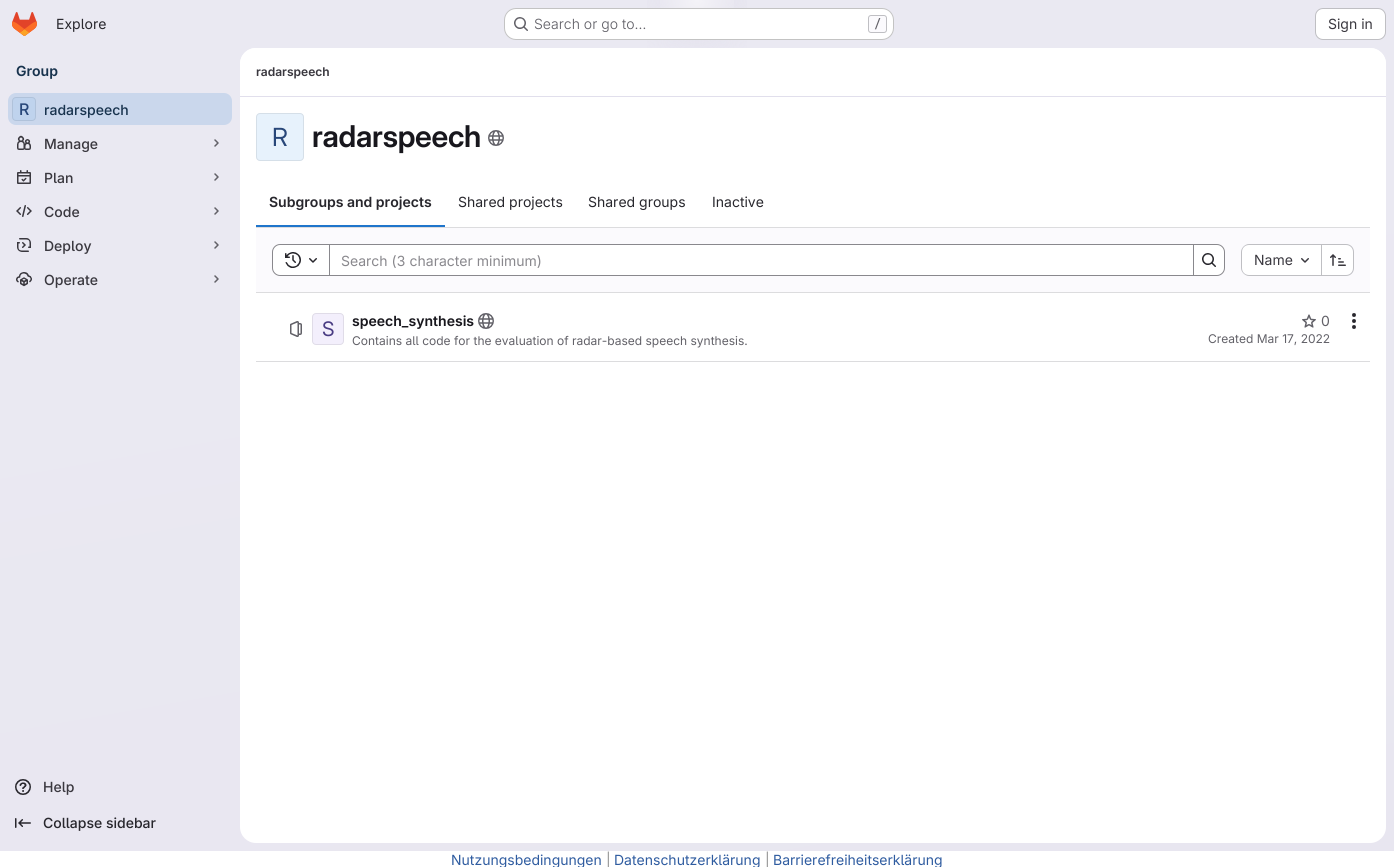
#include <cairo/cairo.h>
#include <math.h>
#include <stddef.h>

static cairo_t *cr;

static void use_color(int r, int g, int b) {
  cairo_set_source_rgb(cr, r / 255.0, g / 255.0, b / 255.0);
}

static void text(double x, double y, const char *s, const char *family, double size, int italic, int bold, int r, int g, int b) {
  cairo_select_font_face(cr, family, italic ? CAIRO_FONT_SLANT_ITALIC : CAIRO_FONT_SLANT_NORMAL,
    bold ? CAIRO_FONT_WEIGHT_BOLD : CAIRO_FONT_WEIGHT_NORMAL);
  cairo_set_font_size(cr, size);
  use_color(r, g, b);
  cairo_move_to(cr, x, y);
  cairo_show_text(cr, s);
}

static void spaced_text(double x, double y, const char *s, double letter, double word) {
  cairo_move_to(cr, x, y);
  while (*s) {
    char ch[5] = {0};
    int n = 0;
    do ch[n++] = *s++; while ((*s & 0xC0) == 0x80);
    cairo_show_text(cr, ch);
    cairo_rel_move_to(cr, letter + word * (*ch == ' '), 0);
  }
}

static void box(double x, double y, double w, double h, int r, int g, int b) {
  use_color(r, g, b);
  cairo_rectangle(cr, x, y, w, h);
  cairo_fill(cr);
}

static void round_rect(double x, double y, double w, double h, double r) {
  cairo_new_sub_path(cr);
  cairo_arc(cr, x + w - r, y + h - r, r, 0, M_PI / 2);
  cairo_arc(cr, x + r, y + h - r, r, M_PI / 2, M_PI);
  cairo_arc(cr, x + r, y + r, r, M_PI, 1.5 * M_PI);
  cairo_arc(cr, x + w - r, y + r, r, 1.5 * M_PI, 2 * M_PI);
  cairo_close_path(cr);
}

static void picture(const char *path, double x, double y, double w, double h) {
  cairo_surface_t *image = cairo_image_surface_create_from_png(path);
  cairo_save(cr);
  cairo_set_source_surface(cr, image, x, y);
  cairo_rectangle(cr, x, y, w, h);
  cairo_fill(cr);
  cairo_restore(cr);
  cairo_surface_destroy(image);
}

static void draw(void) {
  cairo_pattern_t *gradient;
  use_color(255, 255, 255);
  cairo_paint(cr);
  gradient = cairo_pattern_create_linear(792, 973, 602, -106);
  cairo_pattern_add_color_stop_rgba(gradient, 0, 0.91, 0.902, 0.941, 1);
  cairo_pattern_add_color_stop_rgba(gradient, 0.7, 0.918, 0.914, 0.949, 1);
  cairo_set_source(cr, gradient);
  cairo_pattern_destroy(gradient);
  cairo_rectangle(cr, 0, 0, 1394, 851);
  cairo_fill(cr);
  gradient = cairo_pattern_create_radial(0, 0, 0, 0, 0, 1);
  cairo_pattern_set_matrix(gradient, &(cairo_matrix_t){1.0 / 697, 0, 0, 1.0 / 867, -1.0 * 697 / 697, -1.0 * 0 / 867});
  cairo_pattern_add_color_stop_rgba(gradient, 0, 0.894, 0.886, 0.929, 1);
  cairo_pattern_add_color_stop_rgba(gradient, 0.1, 0.894, 0.886, 0.929, 0);
  cairo_set_source(cr, gradient);
  cairo_pattern_destroy(gradient);
  cairo_rectangle(cr, 647, 0, 100, 48);
  cairo_fill(cr);
  gradient = cairo_pattern_create_radial(0, 0, 0, 0, 0, 1);
  cairo_pattern_set_matrix(gradient, &(cairo_matrix_t){1.0 / 697, 0, 0, 1.0 / 867, -1.0 * 697 / 697, -1.0 * 0 / 867});
  cairo_pattern_add_color_stop_rgba(gradient, 0, 0.894, 0.886, 0.925, 1);
  cairo_pattern_add_color_stop_rgba(gradient, 0.07, 0.894, 0.886, 0.925, 0);
  cairo_set_source(cr, gradient);
  cairo_pattern_destroy(gradient);
  cairo_rectangle(cr, 677, 7, 40, 10);
  cairo_fill(cr);
  gradient = cairo_pattern_create_radial(697, 0, 0, 697, 0, 1112);
  cairo_pattern_add_color_stop_rgba(gradient, 0, 1, 1, 1, 0.6);
  cairo_pattern_add_color_stop_rgba(gradient, 0.04, 1, 1, 1, 0);
  cairo_set_source(cr, gradient);
  cairo_pattern_destroy(gradient);
  cairo_rectangle(cr, 660, 0, 74, 37);
  cairo_fill(cr);
  picture("img_01.png", 12, 12, 25, 24);
  use_color(255, 255, 255);
  round_rect(504, 8, 390, 32, 12);
  cairo_fill(cr);
  round_rect(504.5, 8.5, 389, 31, 11.5);
  cairo_set_source_rgba(cr, 0.02, 0.02, 0.024, 0.24);
  cairo_set_line_width(cr, 1);
  cairo_stroke(cr);
  picture("img_02.png", 514, 17, 14, 14);
  use_color(251, 250, 253);
  round_rect(868.5, 15.5, 18, 17, 2.5);
  cairo_fill_preserve(cr);
  use_color(191, 191, 195);
  cairo_stroke(cr);
  use_color(255, 255, 255);
  round_rect(1315.5, 8.5, 70, 31, 7.5);
  cairo_fill_preserve(cr);
  use_color(191, 191, 195);
  cairo_stroke(cr);
  use_color(202, 215, 236);
  round_rect(8, 93, 224, 32, 8);
  cairo_fill(cr);
  use_color(191, 211, 237);
  round_rect(12, 97, 24, 24, 4);
  cairo_fill(cr);
  round_rect(12.5, 97.5, 23, 23, 3.5);
  cairo_set_source_rgba(cr, 0.02, 0.02, 0.024, 0.08);
  cairo_stroke(cr);
  picture("img_03.png", 17, 135, 14, 15);
  cairo_new_path(cr);
  cairo_move_to(cr, 215, 140);
  cairo_line_to(cr, 218, 143);
  cairo_line_to(cr, 215, 146);
  use_color(98, 97, 104);
  cairo_set_line_width(cr, 1.5);
  cairo_set_line_cap(cr, CAIRO_LINE_CAP_ROUND);
  cairo_set_line_join(cr, CAIRO_LINE_JOIN_ROUND);
  cairo_stroke(cr);
  picture("img_04.png", 17, 170, 14, 14);
  cairo_new_path(cr);
  cairo_move_to(cr, 215, 174);
  cairo_line_to(cr, 218, 177);
  cairo_line_to(cr, 215, 180);
  cairo_stroke(cr);
  picture("img_05.png", 16, 205, 16, 12);
  cairo_new_path(cr);
  cairo_move_to(cr, 215, 208);
  cairo_line_to(cr, 218, 211);
  cairo_line_to(cr, 215, 214);
  cairo_stroke(cr);
  picture("img_06.png", 17, 238, 14, 14);
  cairo_new_path(cr);
  cairo_move_to(cr, 215, 242);
  cairo_line_to(cr, 218, 245);
  cairo_line_to(cr, 215, 248);
  cairo_stroke(cr);
  picture("img_07.png", 16, 272, 16, 15);
  cairo_new_path(cr);
  cairo_move_to(cr, 215, 276);
  cairo_line_to(cr, 218, 279);
  cairo_line_to(cr, 215, 282);
  cairo_stroke(cr);
  picture("img_08.png", 15, 779, 16, 16);
  picture("img_09.png", 15, 818, 16, 10);
  use_color(255, 255, 255);
  round_rect(240, 48, 1146, 795, 16);
  cairo_fill(cr);
  cairo_new_path(cr);
  cairo_move_to(cr, 256, 48);
  cairo_line_to(cr, 1370, 48);
  cairo_curve_to(cr, 1379, 48, 1386, 55, 1386, 64);
  cairo_line_to(cr, 1386, 97);
  cairo_line_to(cr, 240, 97);
  cairo_line_to(cr, 240, 64);
  cairo_curve_to(cr, 240, 55, 247, 48, 256, 48);
  cairo_close_path(cr);
  cairo_fill(cr);
  box(240, 96, 1146, 1, 225, 223, 236);
  use_color(231, 242, 252);
  round_rect(256, 113, 48, 48, 4);
  cairo_fill(cr);
  round_rect(256.5, 113.5, 47, 47, 3.5);
  cairo_set_source_rgba(cr, 0.02, 0.02, 0.024, 0.08);
  cairo_set_line_width(cr, 1);
  cairo_set_line_cap(cr, CAIRO_LINE_CAP_BUTT);
  cairo_set_line_join(cr, CAIRO_LINE_JOIN_MITER);
  cairo_stroke(cr);
  picture("img_10.png", 488, 130, 16, 16);
  box(256, 292, 1114, 1, 220, 220, 222);
  box(256, 225, 189, 2, 31, 117, 203);
  box(256, 228, 1114, 64, 251, 250, 253);
  box(256, 227, 1114, 1, 220, 220, 222);
  use_color(255, 255, 255);
  cairo_rectangle(cr, 329.5, 244.5, 864, 31);
  cairo_fill_preserve(cr);
  use_color(137, 136, 141);
  cairo_stroke(cr);
  use_color(255, 255, 255);
  cairo_new_path(cr);
  cairo_move_to(cr, 280, 244.5);
  cairo_line_to(cr, 329.5, 244.5);
  cairo_line_to(cr, 329.5, 275.5);
  cairo_line_to(cr, 280, 275.5);
  cairo_curve_to(cr, 276, 275.5, 272.5, 272, 272.5, 268);
  cairo_line_to(cr, 272.5, 252);
  cairo_curve_to(cr, 272.5, 248, 276, 244.5, 280, 244.5);
  cairo_close_path(cr);
  cairo_fill_preserve(cr);
  use_color(137, 136, 141);
  cairo_stroke(cr);
  picture("img_11.png", 285, 252, 16, 16);
  picture("img_12.png", 309, 258, 8, 5);
  use_color(255, 255, 255);
  cairo_new_path(cr);
  cairo_move_to(cr, 1193.5, 244.5);
  cairo_line_to(cr, 1217, 244.5);
  cairo_curve_to(cr, 1221, 244.5, 1224.5, 248, 1224.5, 252);
  cairo_line_to(cr, 1224.5, 268);
  cairo_curve_to(cr, 1224.5, 272, 1221, 275.5, 1217, 275.5);
  cairo_line_to(cr, 1193.5, 275.5);
  cairo_close_path(cr);
  cairo_fill_preserve(cr);
  use_color(137, 136, 141);
  cairo_stroke(cr);
  picture("img_13.png", 1202, 253, 14, 14);
  use_color(255, 255, 255);
  cairo_new_path(cr);
  cairo_move_to(cr, 1249, 245);
  cairo_line_to(cr, 1321, 245);
  cairo_line_to(cr, 1321, 275);
  cairo_line_to(cr, 1249, 275);
  cairo_curve_to(cr, 1245, 275, 1242, 272, 1242, 268);
  cairo_line_to(cr, 1242, 252);
  cairo_curve_to(cr, 1242, 248, 1245, 245, 1249, 245);
  cairo_close_path(cr);
  cairo_fill(cr);
  use_color(191, 191, 195);
  cairo_set_fill_rule(cr, CAIRO_FILL_RULE_EVEN_ODD);
  cairo_new_path(cr);
  cairo_move_to(cr, 1249, 244);
  cairo_line_to(cr, 1321, 244);
  cairo_line_to(cr, 1321, 276);
  cairo_line_to(cr, 1249, 276);
  cairo_curve_to(cr, 1245, 276, 1241, 272, 1241, 268);
  cairo_line_to(cr, 1241, 252);
  cairo_curve_to(cr, 1241, 248, 1245, 244, 1249, 244);
  cairo_close_path(cr);
  cairo_move_to(cr, 1249, 245);
  cairo_line_to(cr, 1321, 245);
  cairo_line_to(cr, 1321, 275);
  cairo_line_to(cr, 1249, 275);
  cairo_curve_to(cr, 1245, 275, 1242, 272, 1242, 268);
  cairo_line_to(cr, 1242, 252);
  cairo_curve_to(cr, 1242, 248, 1245, 245, 1249, 245);
  cairo_close_path(cr);
  cairo_fill(cr);
  picture("img_14.png", 1301, 258, 8, 5);
  use_color(255, 255, 255);
  cairo_new_path(cr);
  cairo_move_to(cr, 1322, 245);
  cairo_line_to(cr, 1346, 245);
  cairo_curve_to(cr, 1350, 245, 1353, 248, 1353, 252);
  cairo_line_to(cr, 1353, 268);
  cairo_curve_to(cr, 1353, 272, 1350, 275, 1346, 275);
  cairo_line_to(cr, 1322, 275);
  cairo_close_path(cr);
  cairo_fill(cr);
  use_color(191, 191, 195);
  cairo_new_path(cr);
  cairo_move_to(cr, 1322, 244);
  cairo_line_to(cr, 1346, 244);
  cairo_curve_to(cr, 1350.5, 244, 1354, 247.5, 1354, 252);
  cairo_line_to(cr, 1354, 268);
  cairo_curve_to(cr, 1354, 272.5, 1350.5, 276, 1346, 276);
  cairo_line_to(cr, 1322, 276);
  cairo_close_path(cr);
  cairo_move_to(cr, 1322, 245);
  cairo_line_to(cr, 1346, 245);
  cairo_curve_to(cr, 1350, 245, 1353, 248, 1353, 252);
  cairo_line_to(cr, 1353, 268);
  cairo_curve_to(cr, 1353, 272, 1350, 275, 1346, 275);
  cairo_line_to(cr, 1322, 275);
  cairo_close_path(cr);
  cairo_fill(cr);
  box(1321, 244, 1, 32, 191, 191, 195);
  picture("img_15.png", 1330, 254, 16, 12);
  box(256, 361, 1114, 1, 220, 220, 222);
  picture("img_16.png", 290, 321, 12, 16);
  use_color(243, 239, 252);
  round_rect(312, 313, 32, 32, 4);
  cairo_fill(cr);
  round_rect(312.5, 313.5, 31, 31, 3.5);
  cairo_set_source_rgba(cr, 0.02, 0.02, 0.024, 0.08);
  cairo_stroke(cr);
  picture("img_17.png", 478, 313, 16, 16);
  picture("img_18.png", 1302, 314, 14, 14);
  picture("img_19.png", 1352, 313, 4, 16);
  text(56, 29, "Explore", "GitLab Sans", 14, 0, 0, 40, 39, 45);
  text(534, 29, "Search or go to…", "GitLab Sans Light", 14, 0, 0, 98, 97, 104);
  text(874, 28, "/", "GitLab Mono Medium", 12, 0, 0, 98, 97, 104);
  text(1328, 29, "Sign in", "GitLab Sans", 14, 0, 0, 58, 56, 63);
  text(16, 76, "Group", "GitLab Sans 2 SemiBold", 14, 0, 0, 24, 51, 78);
  text(19, 115, "R", "GitLab Sans 2 Medium", 16, 0, 0, 40, 71, 121);
  text(44, 115, "radarspeech", "GitLab Sans Medium", 14, 0, 0, 24, 51, 78);
  text(44, 149, "Manage", "GitLab Sans Medium", 14, 0, 0, 58, 56, 63);
  text(44, 183, "Plan", "GitLab Sans Medium", 14, 0, 0, 58, 56, 63);
  text(44, 217, "Code", "GitLab Sans Medium", 14, 0, 0, 58, 56, 63);
  text(44, 251, "Deploy", "GitLab Sans Medium", 14, 0, 0, 58, 56, 63);
  text(44, 285, "Operate", "GitLab Sans Medium", 14, 0, 0, 58, 56, 63);
  text(43, 792, "Help", "GitLab Sans Medium", 14, 0, 0, 58, 56, 63);
  text(43, 828, "Collapse sidebar", "GitLab Sans Medium", 14, 0, 0, 40, 39, 45);
  text(256, 76, "radarspeech", "GitLab Sans 2 SemiBold", 12, 0, 0, 58, 56, 63);
  text(272, 146, "R", "GitLab Sans 2", 25, 0, 0, 40, 71, 121);
  cairo_select_font_face(cr, "GitLab Sans SemiBold", CAIRO_FONT_SLANT_NORMAL, CAIRO_FONT_WEIGHT_NORMAL);
  cairo_set_font_size(cr, 30);
  use_color(24, 23, 29);
  spaced_text(312, 147, "radarspeech", -0.25, 0);
  text(269, 207, "Subgroups and projects", "GitLab Sans 2 SemiBold", 14, 0, 0, 40, 39, 45);
  text(458, 207, "Shared projects", "GitLab Sans", 14, 0, 0, 40, 39, 45);
  text(588, 207, "Shared groups", "GitLab Sans", 14, 0, 0, 40, 39, 45);
  text(712, 207, "Inactive", "GitLab Sans", 14, 0, 0, 40, 39, 45);
  text(341, 266, "Search (3 character minimum)", "GitLab Sans", 14, 0, 0, 137, 136, 141);
  text(1254, 265, "Name", "GitLab Sans", 14, 0, 0, 58, 56, 63);
  text(322, 336, "S", "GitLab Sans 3", 20, 0, 0, 73, 60, 131);
  text(352, 326, "speech_synthesis", "GitLab Sans 2 SemiBold", 14, 0, 0, 24, 23, 29);
  text(352, 345, "Contains all code for the evaluation of radar-based speech synthesis.", "GitLab Sans", 12, 0, 0, 98, 97, 104);
  text(1321, 326, "0", "GitLab Sans", 14, 0, 0, 98, 97, 104);
  text(1208, 343, "Created Mar 17, 2022", "GitLab Sans", 12, 0, 0, 98, 97, 104);
  text(451, 865, "Nutzungsbedingungen", "GitLab Sans", 14, 0, 0, 47, 92, 160);
  text(606, 865, "|", "GitLab Sans", 14, 0, 0, 144, 144, 144);
  text(614, 865, "Datenschutzerklärung", "GitLab Sans", 14, 0, 0, 47, 92, 160);
  text(765, 865, "|", "GitLab Sans", 14, 0, 0, 144, 144, 144);
  text(773, 865, "Barrierefreiheitserklärung", "GitLab Sans", 14, 0, 0, 47, 92, 160);
}

int main(void) {
  cairo_surface_t *surface = cairo_image_surface_create(CAIRO_FORMAT_RGB24, 1394, 867);
  cr = cairo_create(surface);
  cairo_font_options_t *options = cairo_font_options_create();
  cairo_font_options_set_hint_metrics(options, CAIRO_HINT_METRICS_OFF);
  cairo_font_options_set_hint_style(options, CAIRO_HINT_STYLE_NONE);
  cairo_set_font_options(cr, options);
  cairo_set_miter_limit(cr, 4);
  draw();
  cairo_surface_write_to_png(surface, "out.png");
  cairo_font_options_destroy(options);
  cairo_destroy(cr);
  cairo_surface_destroy(surface);
  return 0;
}
